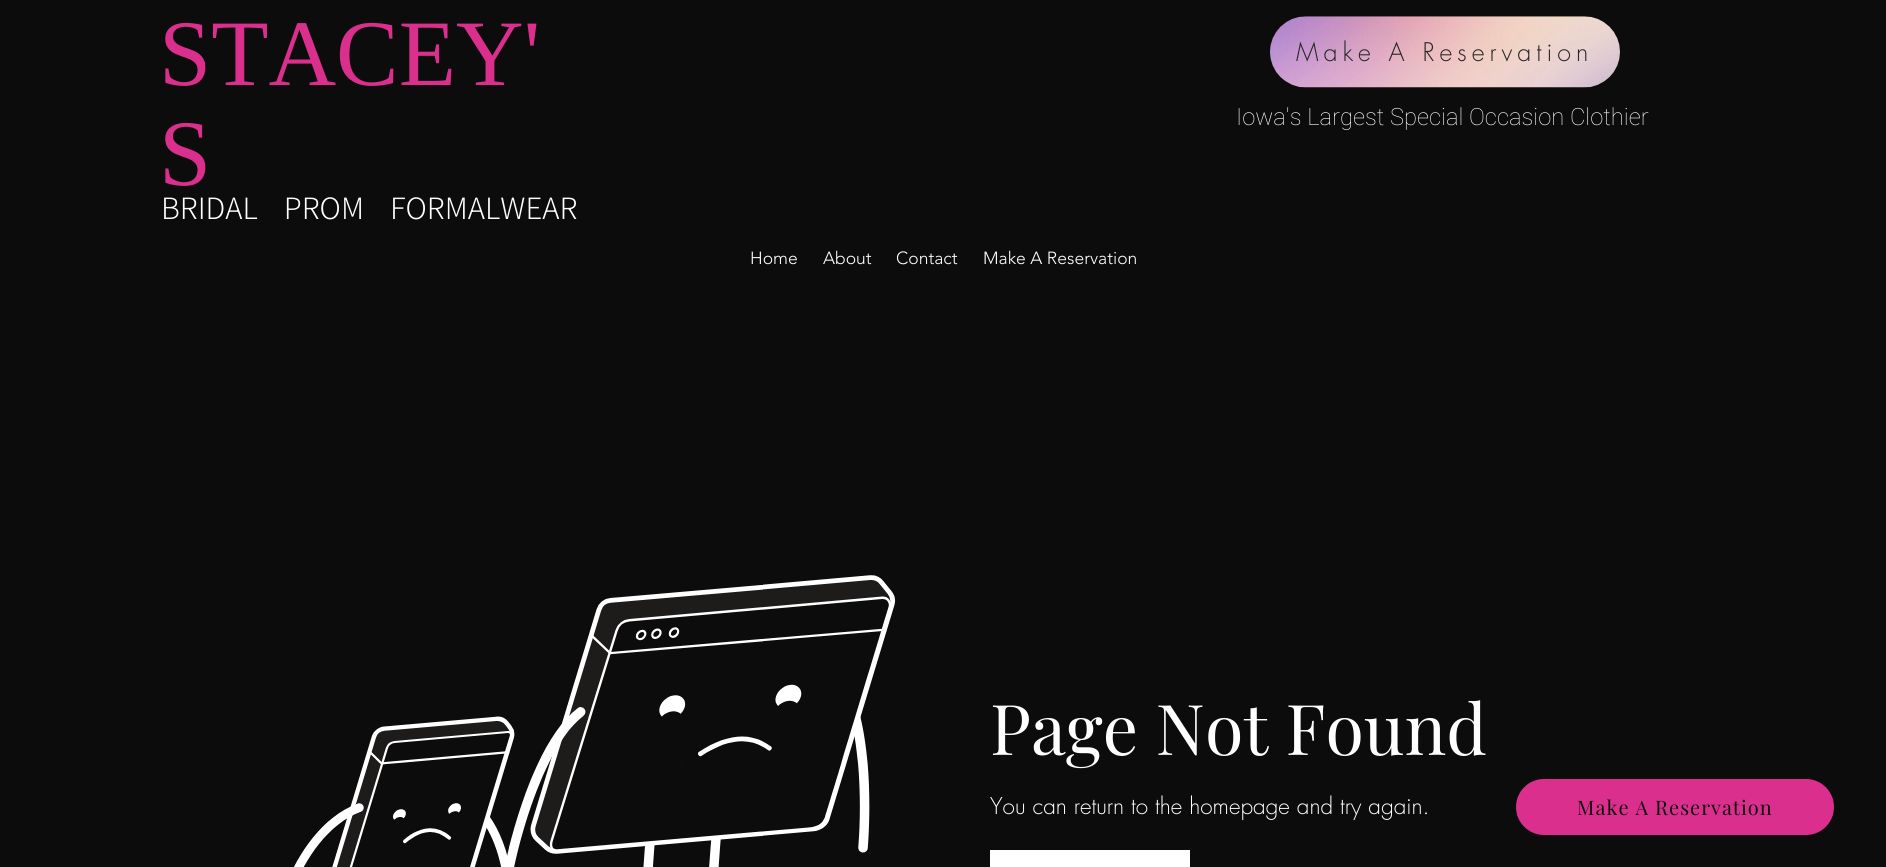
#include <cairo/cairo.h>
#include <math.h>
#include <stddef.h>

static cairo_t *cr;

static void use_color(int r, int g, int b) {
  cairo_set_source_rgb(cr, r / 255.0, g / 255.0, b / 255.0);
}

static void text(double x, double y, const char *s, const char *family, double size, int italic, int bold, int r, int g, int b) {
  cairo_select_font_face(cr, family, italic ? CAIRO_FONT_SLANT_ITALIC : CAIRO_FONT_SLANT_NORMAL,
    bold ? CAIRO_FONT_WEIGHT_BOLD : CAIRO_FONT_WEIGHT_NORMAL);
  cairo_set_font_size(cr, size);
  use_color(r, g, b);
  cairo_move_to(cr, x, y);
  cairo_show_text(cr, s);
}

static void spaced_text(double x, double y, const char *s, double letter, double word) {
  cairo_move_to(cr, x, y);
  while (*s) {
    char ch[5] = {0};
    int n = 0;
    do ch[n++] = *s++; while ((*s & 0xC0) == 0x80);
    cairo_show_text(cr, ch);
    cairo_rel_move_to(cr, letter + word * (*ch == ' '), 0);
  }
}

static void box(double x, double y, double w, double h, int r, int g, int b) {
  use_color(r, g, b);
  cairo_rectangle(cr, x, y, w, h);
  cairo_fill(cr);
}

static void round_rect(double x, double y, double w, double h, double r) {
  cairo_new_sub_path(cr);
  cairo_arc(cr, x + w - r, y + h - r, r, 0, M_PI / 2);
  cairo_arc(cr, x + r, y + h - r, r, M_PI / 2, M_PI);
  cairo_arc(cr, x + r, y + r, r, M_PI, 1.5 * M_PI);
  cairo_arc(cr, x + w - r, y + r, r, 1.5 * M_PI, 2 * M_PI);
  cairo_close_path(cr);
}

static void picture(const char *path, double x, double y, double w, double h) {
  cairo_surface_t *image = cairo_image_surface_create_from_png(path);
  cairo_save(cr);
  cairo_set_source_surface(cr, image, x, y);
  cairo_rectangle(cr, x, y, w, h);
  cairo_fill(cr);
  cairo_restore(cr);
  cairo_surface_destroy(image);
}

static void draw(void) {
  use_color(13, 12, 12);
  cairo_paint(cr);
  picture("img_01.png", 1270, 16, 350, 72);
  picture("img_02.png", 294, 575, 602, 292);
  box(990, 850, 200, 17, 255, 255, 255);
  use_color(219, 47, 142);
  round_rect(1516, 779, 318, 56, 28);
  cairo_fill(cr);
  text(159, 85, "STACEY'", "Liberation Serif", 93.75, 0, 0, 219, 47, 142);
  text(159, 185, "S", "Liberation Serif", 93.75, 0, 0, 219, 47, 142);
  text(161, 219, "BRIDAL    PROM    FORMALWEAR", "Assistant Light", 32.5, 0, 0, 255, 255, 255);
  cairo_select_font_face(cr, "futura Light", CAIRO_FONT_SLANT_NORMAL, CAIRO_FONT_WEIGHT_NORMAL);
  cairo_set_font_size(cr, 25);
  use_color(40, 38, 38);
  spaced_text(1296, 61, "Make A Reservation", 5, 0);
  text(1236, 125, "Iowa's Largest Special Occasion Clothier", "Roboto Thin", 23.75, 0, 0, 255, 255, 255);
  text(750, 264, "Home", "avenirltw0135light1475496 Light", 17.5, 0, 0, 255, 255, 255);
  text(823, 264, "About", "avenirltw0135light1475496 Light", 17.5, 0, 0, 255, 255, 255);
  text(896, 264, "Contact", "avenirltw0135light1475496 Light", 17.5, 0, 0, 255, 255, 255);
  text(983, 264, "Make A Reservation", "avenirltw0135light1475496 Light", 17.5, 0, 0, 255, 255, 255);
  text(990, 755, "Page Not Found", "Playfair Display", 70, 0, 0, 255, 255, 255);
  text(990, 814, "You can return to the homepage and try again.", "futura Light", 22.5, 0, 0, 255, 255, 255);
  cairo_select_font_face(cr, "Playfair Display", CAIRO_FONT_SLANT_NORMAL, CAIRO_FONT_WEIGHT_NORMAL);
  cairo_set_font_size(cr, 20);
  use_color(13, 12, 12);
  spaced_text(1577, 815, "Make A Reservation", 1, 0);
}

int main(void) {
  cairo_surface_t *surface = cairo_image_surface_create(CAIRO_FORMAT_RGB24, 1886, 867);
  cr = cairo_create(surface);
  cairo_font_options_t *options = cairo_font_options_create();
  cairo_font_options_set_hint_metrics(options, CAIRO_HINT_METRICS_OFF);
  cairo_font_options_set_hint_style(options, CAIRO_HINT_STYLE_NONE);
  cairo_set_font_options(cr, options);
  cairo_set_miter_limit(cr, 4);
  draw();
  cairo_surface_write_to_png(surface, "out.png");
  cairo_font_options_destroy(options);
  cairo_destroy(cr);
  cairo_surface_destroy(surface);
  return 0;
}
